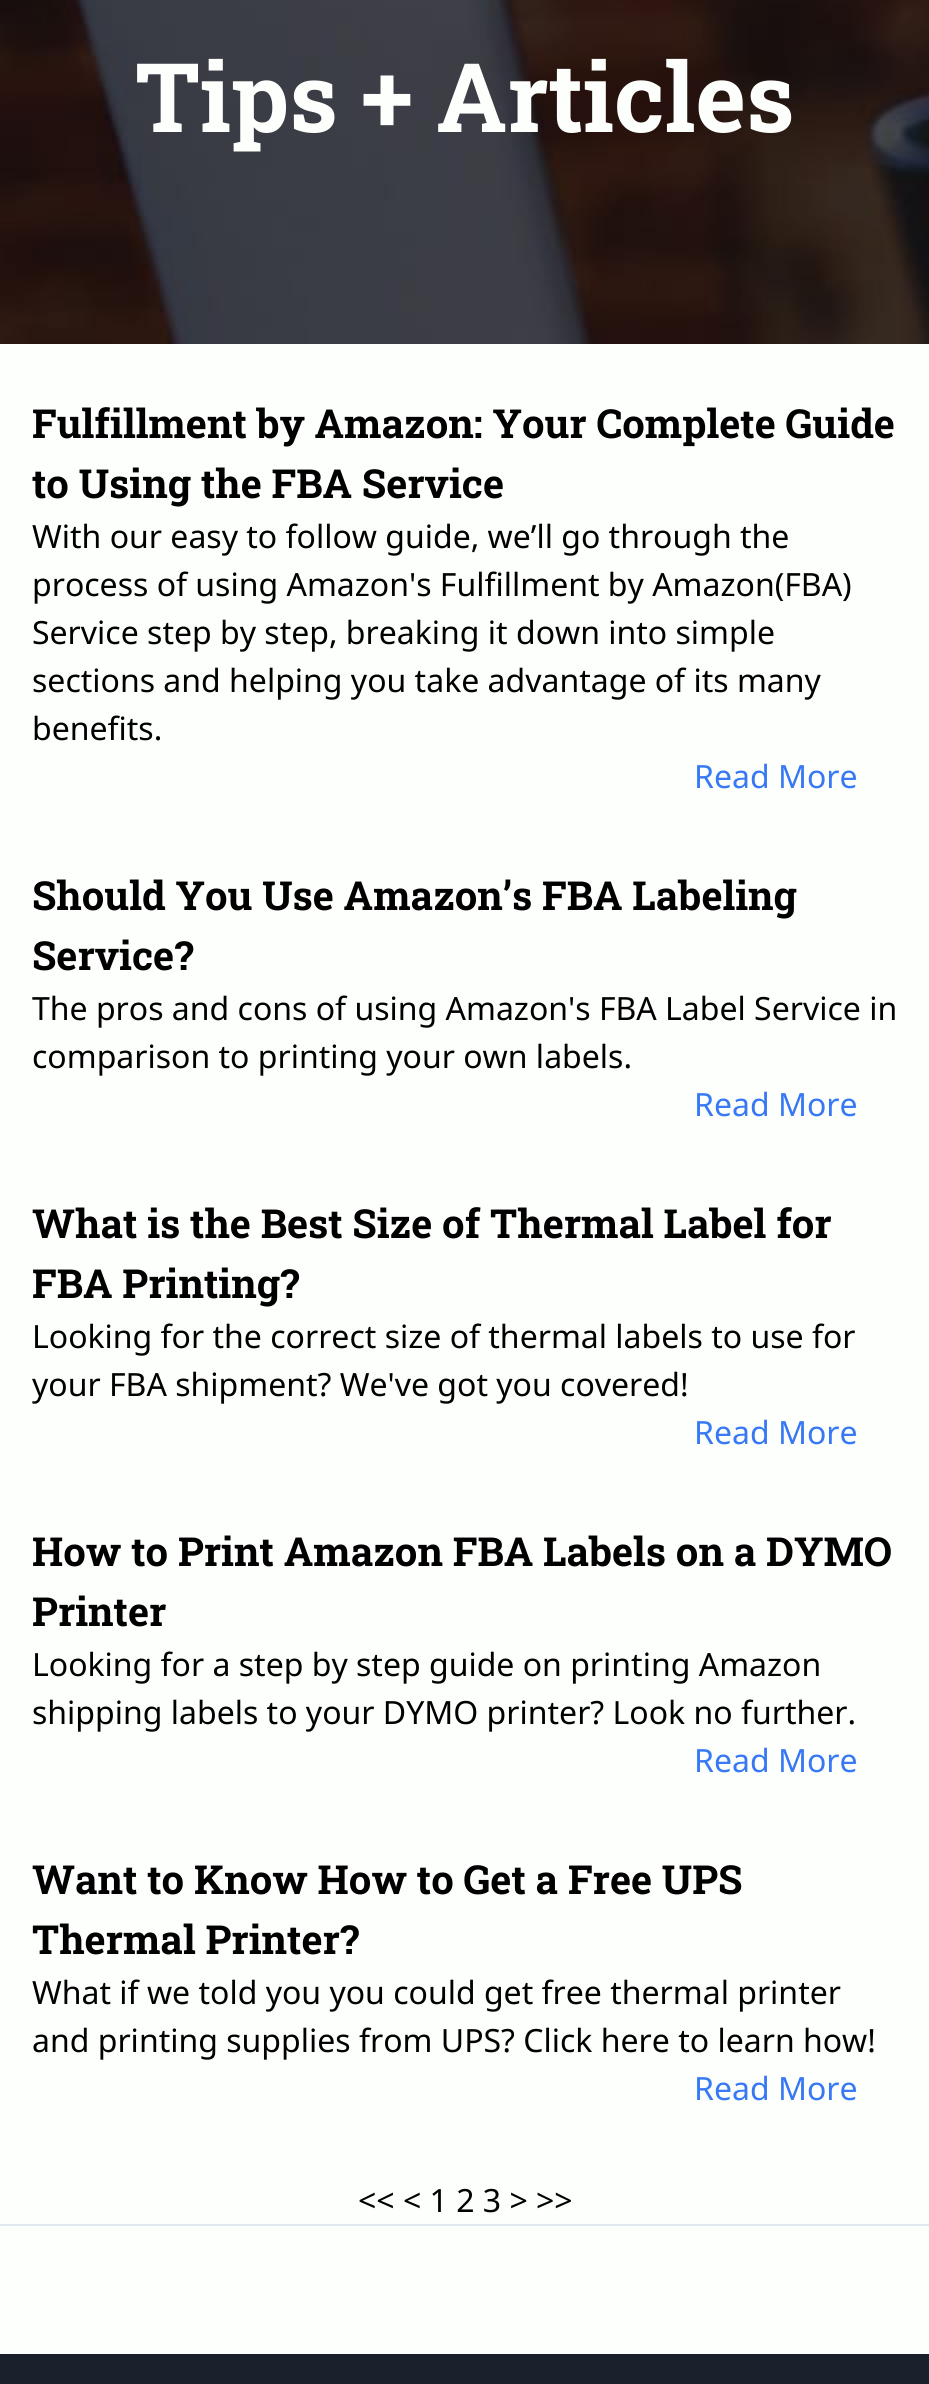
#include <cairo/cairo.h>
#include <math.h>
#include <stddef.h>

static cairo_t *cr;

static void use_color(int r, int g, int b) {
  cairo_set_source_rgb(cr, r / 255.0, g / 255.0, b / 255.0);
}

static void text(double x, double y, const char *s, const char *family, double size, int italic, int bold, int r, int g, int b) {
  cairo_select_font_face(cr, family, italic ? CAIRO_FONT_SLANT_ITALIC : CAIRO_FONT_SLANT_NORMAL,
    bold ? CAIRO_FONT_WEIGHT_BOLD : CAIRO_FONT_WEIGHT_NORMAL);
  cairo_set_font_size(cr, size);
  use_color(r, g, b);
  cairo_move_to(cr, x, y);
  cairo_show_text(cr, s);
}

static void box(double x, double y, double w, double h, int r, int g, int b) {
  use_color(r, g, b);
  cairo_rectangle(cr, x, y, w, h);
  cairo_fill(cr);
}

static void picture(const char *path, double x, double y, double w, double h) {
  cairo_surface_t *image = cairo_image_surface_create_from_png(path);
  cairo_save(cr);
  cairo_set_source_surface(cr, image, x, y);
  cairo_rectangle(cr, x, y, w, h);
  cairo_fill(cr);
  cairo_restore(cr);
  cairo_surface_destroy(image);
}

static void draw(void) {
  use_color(253, 255, 252);
  cairo_paint(cr);
  picture("img_01.png", 0, 0, 929, 344);
  box(0, 2224, 929, 2, 226, 232, 240);
  box(0, 2354, 929, 30, 26, 32, 44);
  text(135, 132, "Tips + Articles", "Roboto Slab", 96, 0, 1, 253, 255, 252);
  text(32, 438, "Fulfillment by Amazon: Your Complete Guide", "Roboto Slab", 40, 0, 1, 0, 0, 0);
  text(32, 498, "to Using the FBA Service", "Roboto Slab", 40, 0, 1, 0, 0, 0);
  text(32, 548, "With our easy to follow guide, we’ll go through the", "Noto Sans", 32, 0, 0, 0, 0, 0);
  text(32, 596, "process of using Amazon's Fulfillment by Amazon(FBA)", "Noto Sans", 32, 0, 0, 0, 0, 0);
  text(32, 644, "Service step by step, breaking it down into simple", "Noto Sans", 32, 0, 0, 0, 0, 0);
  text(32, 692, "sections and helping you take advantage of its many", "Noto Sans", 32, 0, 0, 0, 0, 0);
  text(32, 740, "benefits.", "Noto Sans", 32, 0, 0, 0, 0, 0);
  text(694, 788, "Read More", "Noto Sans", 32, 0, 0, 55, 120, 245);
  text(32, 910, "Should You Use Amazon’s FBA Labeling", "Roboto Slab", 40, 0, 1, 0, 0, 0);
  text(32, 970, "Service?", "Roboto Slab", 40, 0, 1, 0, 0, 0);
  text(32, 1020, "The pros and cons of using Amazon's FBA Label Service in", "Noto Sans", 32, 0, 0, 0, 0, 0);
  text(32, 1068, "comparison to printing your own labels.", "Noto Sans", 32, 0, 0, 0, 0, 0);
  text(694, 1116, "Read More", "Noto Sans", 32, 0, 0, 55, 120, 245);
  text(32, 1238, "What is the Best Size of Thermal Label for", "Roboto Slab", 40, 0, 1, 0, 0, 0);
  text(32, 1298, "FBA Printing?", "Roboto Slab", 40, 0, 1, 0, 0, 0);
  text(32, 1348, "Looking for the correct size of thermal labels to use for", "Noto Sans", 32, 0, 0, 0, 0, 0);
  text(32, 1396, "your FBA shipment? We've got you covered!", "Noto Sans", 32, 0, 0, 0, 0, 0);
  text(694, 1444, "Read More", "Noto Sans", 32, 0, 0, 55, 120, 245);
  text(32, 1566, "How to Print Amazon FBA Labels on a DYMO", "Roboto Slab", 40, 0, 1, 0, 0, 0);
  text(32, 1626, "Printer", "Roboto Slab", 40, 0, 1, 0, 0, 0);
  text(32, 1676, "Looking for a step by step guide on printing Amazon", "Noto Sans", 32, 0, 0, 0, 0, 0);
  text(32, 1724, "shipping labels to your DYMO printer? Look no further.", "Noto Sans", 32, 0, 0, 0, 0, 0);
  text(694, 1772, "Read More", "Noto Sans", 32, 0, 0, 55, 120, 245);
  text(32, 1894, "Want to Know How to Get a Free UPS", "Roboto Slab", 40, 0, 1, 0, 0, 0);
  text(32, 1954, "Thermal Printer?", "Roboto Slab", 40, 0, 1, 0, 0, 0);
  text(32, 2004, "What if we told you you could get free thermal printer", "Noto Sans", 32, 0, 0, 0, 0, 0);
  text(32, 2052, "and printing supplies from UPS? Click here to learn how!", "Noto Sans", 32, 0, 0, 0, 0, 0);
  text(694, 2100, "Read More", "Noto Sans", 32, 0, 0, 55, 120, 245);
  text(358, 2212, "<< < 1 2 3 > >>", "Noto Sans", 32, 0, 0, 0, 0, 0);
}

int main(void) {
  cairo_surface_t *surface = cairo_image_surface_create(CAIRO_FORMAT_RGB24, 929, 2384);
  cr = cairo_create(surface);
  cairo_font_options_t *options = cairo_font_options_create();
  cairo_font_options_set_hint_metrics(options, CAIRO_HINT_METRICS_OFF);
  cairo_font_options_set_hint_style(options, CAIRO_HINT_STYLE_NONE);
  cairo_set_font_options(cr, options);
  cairo_set_miter_limit(cr, 4);
  draw();
  cairo_surface_write_to_png(surface, "out.png");
  cairo_font_options_destroy(options);
  cairo_destroy(cr);
  cairo_surface_destroy(surface);
  return 0;
}
